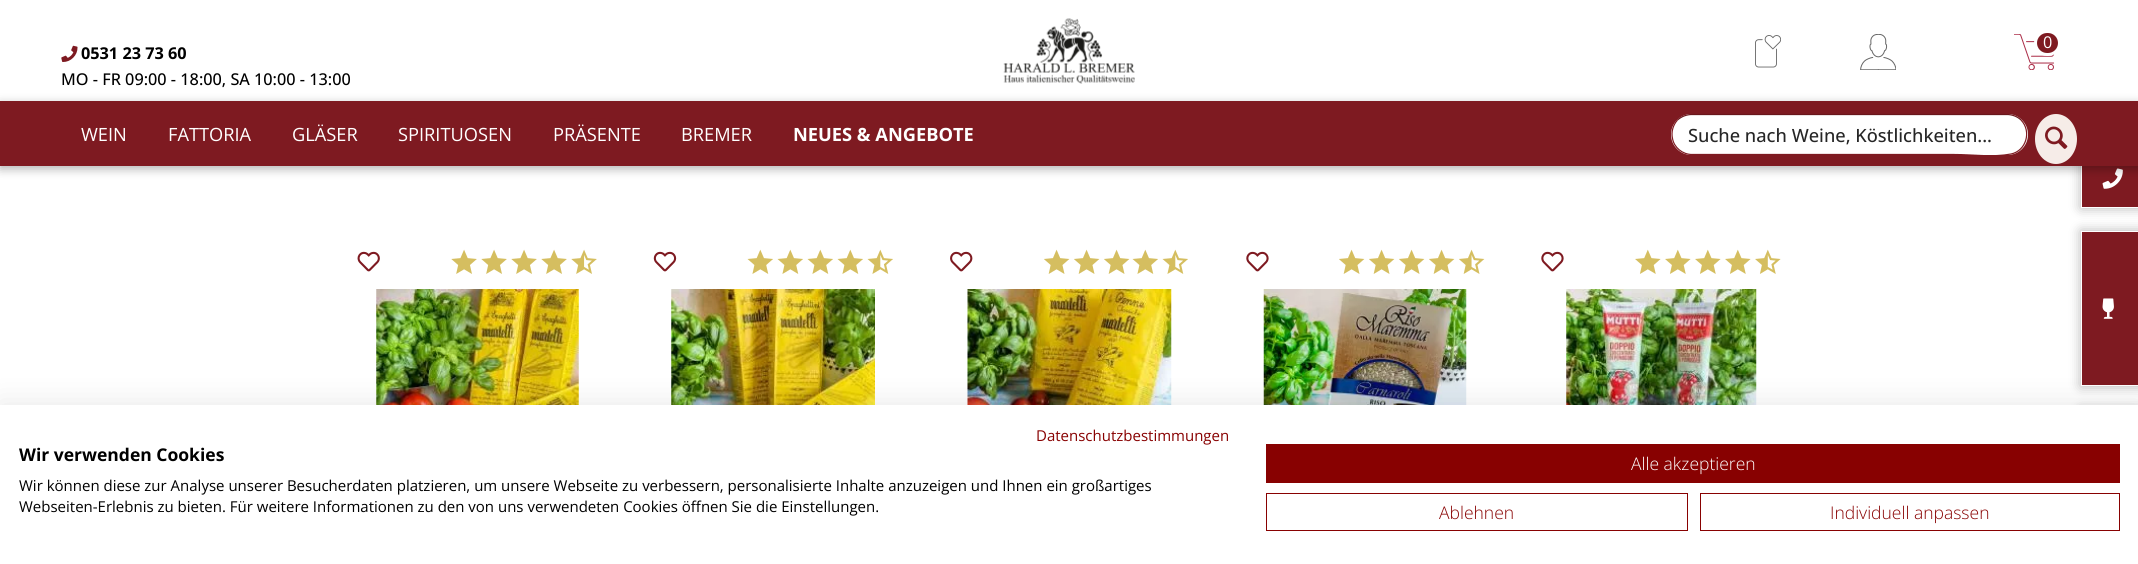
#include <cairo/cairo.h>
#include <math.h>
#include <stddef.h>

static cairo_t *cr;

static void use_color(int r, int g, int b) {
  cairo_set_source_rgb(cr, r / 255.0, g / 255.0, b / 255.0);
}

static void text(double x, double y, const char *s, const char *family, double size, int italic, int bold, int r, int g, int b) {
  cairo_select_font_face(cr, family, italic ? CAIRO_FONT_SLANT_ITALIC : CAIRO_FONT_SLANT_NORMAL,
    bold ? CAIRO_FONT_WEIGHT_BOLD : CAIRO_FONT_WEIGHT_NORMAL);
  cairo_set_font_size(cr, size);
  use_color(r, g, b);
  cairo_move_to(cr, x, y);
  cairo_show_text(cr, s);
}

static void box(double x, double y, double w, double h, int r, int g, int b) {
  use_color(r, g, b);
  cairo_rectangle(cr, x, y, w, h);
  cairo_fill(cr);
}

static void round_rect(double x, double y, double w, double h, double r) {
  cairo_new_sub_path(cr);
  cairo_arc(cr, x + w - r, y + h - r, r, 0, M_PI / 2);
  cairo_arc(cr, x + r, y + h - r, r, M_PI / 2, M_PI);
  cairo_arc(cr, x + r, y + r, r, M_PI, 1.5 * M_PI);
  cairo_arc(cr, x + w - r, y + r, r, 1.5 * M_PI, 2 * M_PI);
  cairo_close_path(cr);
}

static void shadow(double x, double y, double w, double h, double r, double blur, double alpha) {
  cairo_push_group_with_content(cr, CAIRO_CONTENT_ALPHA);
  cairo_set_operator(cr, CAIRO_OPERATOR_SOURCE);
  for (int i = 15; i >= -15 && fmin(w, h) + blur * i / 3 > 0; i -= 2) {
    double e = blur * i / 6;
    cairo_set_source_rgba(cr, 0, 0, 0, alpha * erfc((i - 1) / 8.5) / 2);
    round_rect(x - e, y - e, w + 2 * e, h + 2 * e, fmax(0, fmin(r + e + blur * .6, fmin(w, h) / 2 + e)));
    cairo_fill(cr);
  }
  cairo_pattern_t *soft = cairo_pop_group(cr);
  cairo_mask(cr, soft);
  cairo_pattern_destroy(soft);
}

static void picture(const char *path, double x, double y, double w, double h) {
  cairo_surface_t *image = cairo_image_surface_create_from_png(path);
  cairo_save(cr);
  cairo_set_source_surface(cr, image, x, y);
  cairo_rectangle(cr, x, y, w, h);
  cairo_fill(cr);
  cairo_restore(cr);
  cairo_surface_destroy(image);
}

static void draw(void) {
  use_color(255, 255, 255);
  cairo_paint(cr);
  picture("img_01.png", 1003, 18, 132, 66);
  picture("img_02.png", 1755, 35, 26, 33);
  picture("img_03.png", 1860, 34, 36, 36);
  picture("img_04.png", 2014, 34, 41, 36);
  use_color(126, 26, 33);
  round_rect(2035.5, 31.5, 24, 23, 11.5);
  cairo_fill_preserve(cr);
  use_color(255, 255, 255);
  cairo_set_line_width(cr, 3);
  cairo_stroke(cr);
  picture("img_05.png", 61, 45, 17, 17);
  use_color(0, 0, 0);
  shadow(2081, 150, 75, 58, 0, 6, 0.3);
  box(2082, 166, 56, 41, 126, 26, 33);
  cairo_rectangle(cr, 2081.5, 150.5, 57, 57);
  use_color(255, 255, 255);
  cairo_set_line_width(cr, 1);
  cairo_stroke(cr);
  picture("img_07.png", 2102, 168, 21, 21);
  use_color(0, 0, 0);
  shadow(0, 104, 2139, 65, 0, 5, 0.3);
  box(0, 101, 2138, 65, 126, 26, 33);
  use_color(255, 255, 255);
  round_rect(1671, 114, 357, 41, 20.5);
  cairo_fill(cr);
  cairo_new_path(cr);
  cairo_move_to(cr, 1677.5, 120);
  cairo_curve_to(cr, 1681.5, 116.5, 1686.5, 114.5, 1692, 114.5);
  cairo_line_to(cr, 2007, 114.5);
  cairo_curve_to(cr, 2012, 114.5, 2017.5, 116.5, 2021, 120);
  use_color(105, 22, 27);
  cairo_set_line_width(cr, 1.2);
  cairo_stroke(cr);
  cairo_new_path(cr);
  cairo_move_to(cr, 2021, 120);
  cairo_curve_to(cr, 2032, 131.5, 2026, 151, 2011, 154);
  cairo_curve_to(cr, 1992.5, 157.5, 1973, 154.5, 1954.5, 154.5);
  cairo_line_to(cr, 1692, 154.5);
  cairo_curve_to(cr, 1682.5, 154.5, 1674, 147.5, 1672.5, 138.5);
  cairo_curve_to(cr, 1671, 132, 1673, 125, 1677.5, 120);
  use_color(126, 26, 33);
  cairo_stroke(cr);
  use_color(246, 236, 232);
  cairo_new_path(cr);
  cairo_move_to(cr, 2056, 114);
  cairo_curve_to(cr, 2067.5, 114, 2077, 125, 2077, 139);
  cairo_curve_to(cr, 2077, 153, 2067.5, 164, 2056, 164);
  cairo_curve_to(cr, 2044.5, 164, 2035, 153, 2035, 139);
  cairo_curve_to(cr, 2035, 125, 2044.5, 114, 2056, 114);
  cairo_close_path(cr);
  cairo_fill(cr);
  picture("img_06.png", 2045, 126, 23, 23);
  use_color(0, 0, 0);
  shadow(2081, 231, 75, 155, 0, 6, 0.3);
  use_color(126, 26, 33);
  cairo_rectangle(cr, 2081.5, 231.5, 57, 154);
  cairo_fill_preserve(cr);
  use_color(255, 255, 255);
  cairo_set_line_width(cr, 1);
  cairo_stroke(cr);
  picture("img_08.png", 2102, 298, 12, 21);
  use_color(0, 0, 0);
  shadow(2081, 410, 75, 105, 0, 6, 0.3);
  picture("img_09.png", 357, 251, 23, 21);
  picture("img_10.png", 451, 249, 26, 25);
  picture("img_10.png", 481, 249, 26, 25);
  picture("img_10.png", 511, 249, 26, 25);
  picture("img_10.png", 541, 249, 26, 25);
  picture("img_11.png", 571, 249, 26, 25);
  picture("img_12.png", 376, 289, 203, 116);
  picture("img_13.png", 653, 251, 24, 21);
  picture("img_14.png", 747, 249, 26, 25);
  picture("img_14.png", 777, 249, 26, 25);
  picture("img_14.png", 807, 249, 26, 25);
  picture("img_14.png", 837, 249, 26, 25);
  picture("img_15.png", 867, 249, 26, 25);
  picture("img_16.png", 671, 289, 204, 116);
  picture("img_17.png", 950, 251, 23, 21);
  picture("img_18.png", 1044, 249, 26, 25);
  picture("img_18.png", 1074, 249, 26, 25);
  picture("img_18.png", 1104, 249, 26, 25);
  picture("img_14.png", 1132, 249, 26, 25);
  picture("img_15.png", 1162, 249, 26, 25);
  picture("img_19.png", 967, 289, 205, 116);
  picture("img_20.png", 1246, 251, 23, 21);
  picture("img_18.png", 1339, 249, 26, 25);
  picture("img_18.png", 1369, 249, 26, 25);
  picture("img_18.png", 1399, 249, 26, 25);
  picture("img_18.png", 1429, 249, 26, 25);
  picture("img_21.png", 1459, 249, 26, 25);
  picture("img_22.png", 1263, 289, 204, 116);
  picture("img_20.png", 1541, 251, 23, 21);
  picture("img_23.png", 1635, 249, 26, 25);
  picture("img_23.png", 1665, 249, 26, 25);
  picture("img_23.png", 1695, 249, 26, 25);
  picture("img_23.png", 1725, 249, 26, 25);
  picture("img_24.png", 1755, 249, 26, 25);
  picture("img_25.png", 1566, 289, 191, 116);
  shadow(0, 405, 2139, 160, 0, 15, 0.1);
  box(0, 405, 2138, 159, 255, 255, 255);
  box(1266, 444, 854, 39, 136, 1, 1);
  cairo_rectangle(cr, 1266.5, 493.5, 421, 37);
  cairo_stroke(cr);
  cairo_rectangle(cr, 1700.5, 493.5, 419, 37);
  cairo_stroke(cr);
  text(2043, 48, "0", "Open Sans", 16.25, 0, 0, 255, 255, 255);
  text(81, 59, "0531 23 73 60", "Open Sans", 16.25, 0, 1, 0, 0, 0);
  text(61, 85, "MO - FR 09:00 - 18:00, SA 10:00 - 13:00", "Open Sans Medium", 16.25, 0, 0, 0, 0, 0);
  text(81, 141, "WEIN", "Open Sans", 18.25, 0, 0, 255, 255, 255);
  text(168, 141, "FATTORIA", "Open Sans", 18.25, 0, 0, 255, 255, 255);
  text(292, 141, "GLÄSER", "Open Sans", 18.25, 0, 0, 255, 255, 255);
  text(398, 141, "SPIRITUOSEN", "Open Sans", 18.25, 0, 0, 255, 255, 255);
  text(553, 141, "PRÄSENTE", "Open Sans", 18.25, 0, 0, 255, 255, 255);
  text(681, 141, "BREMER", "Open Sans", 18.25, 0, 0, 255, 255, 255);
  text(793, 141, "NEUES & ANGEBOTE", "Open Sans", 18.25, 0, 1, 255, 255, 255);
  text(1688, 142, "Suche nach Weine, Köstlichkeiten...", "Open Sans Medium", 18.25, 0, 0, 38, 38, 38);
  text(1036, 441, "Datenschutzbestimmungen", "Open Sans", 15, 0, 0, 136, 1, 1);
  text(19, 461, "Wir verwenden Cookies", "Open Sans", 17.5, 0, 1, 0, 0, 0);
  text(19, 491, "Wir können diese zur Analyse unserer Besucherdaten platzieren, um unsere Webseite zu verbessern, personalisierte Inhalte anzuzeigen und Ihnen ein großartiges", "Open Sans", 15, 0, 0, 0, 0, 0);
  text(19, 512, "Webseiten-Erlebnis zu bieten. Für weitere Informationen zu den von uns verwendeten Cookies öffnen Sie die Einstellungen.", "Open Sans", 15, 0, 0, 0, 0, 0);
  text(1631, 470, "Alle akzeptieren", "Open Sans Light", 17.5, 0, 0, 255, 255, 255);
  text(1439, 519, "Ablehnen", "Open Sans Light", 17.5, 0, 0, 136, 1, 1);
  text(1830, 519, "Individuell anpassen", "Open Sans Light", 17.5, 0, 0, 136, 1, 1);
}

int main(void) {
  cairo_surface_t *surface = cairo_image_surface_create(CAIRO_FORMAT_RGB24, 2138, 564);
  cr = cairo_create(surface);
  cairo_font_options_t *options = cairo_font_options_create();
  cairo_font_options_set_hint_metrics(options, CAIRO_HINT_METRICS_OFF);
  cairo_font_options_set_hint_style(options, CAIRO_HINT_STYLE_NONE);
  cairo_set_font_options(cr, options);
  cairo_set_miter_limit(cr, 4);
  draw();
  cairo_surface_write_to_png(surface, "out.png");
  cairo_font_options_destroy(options);
  cairo_destroy(cr);
  cairo_surface_destroy(surface);
  return 0;
}
